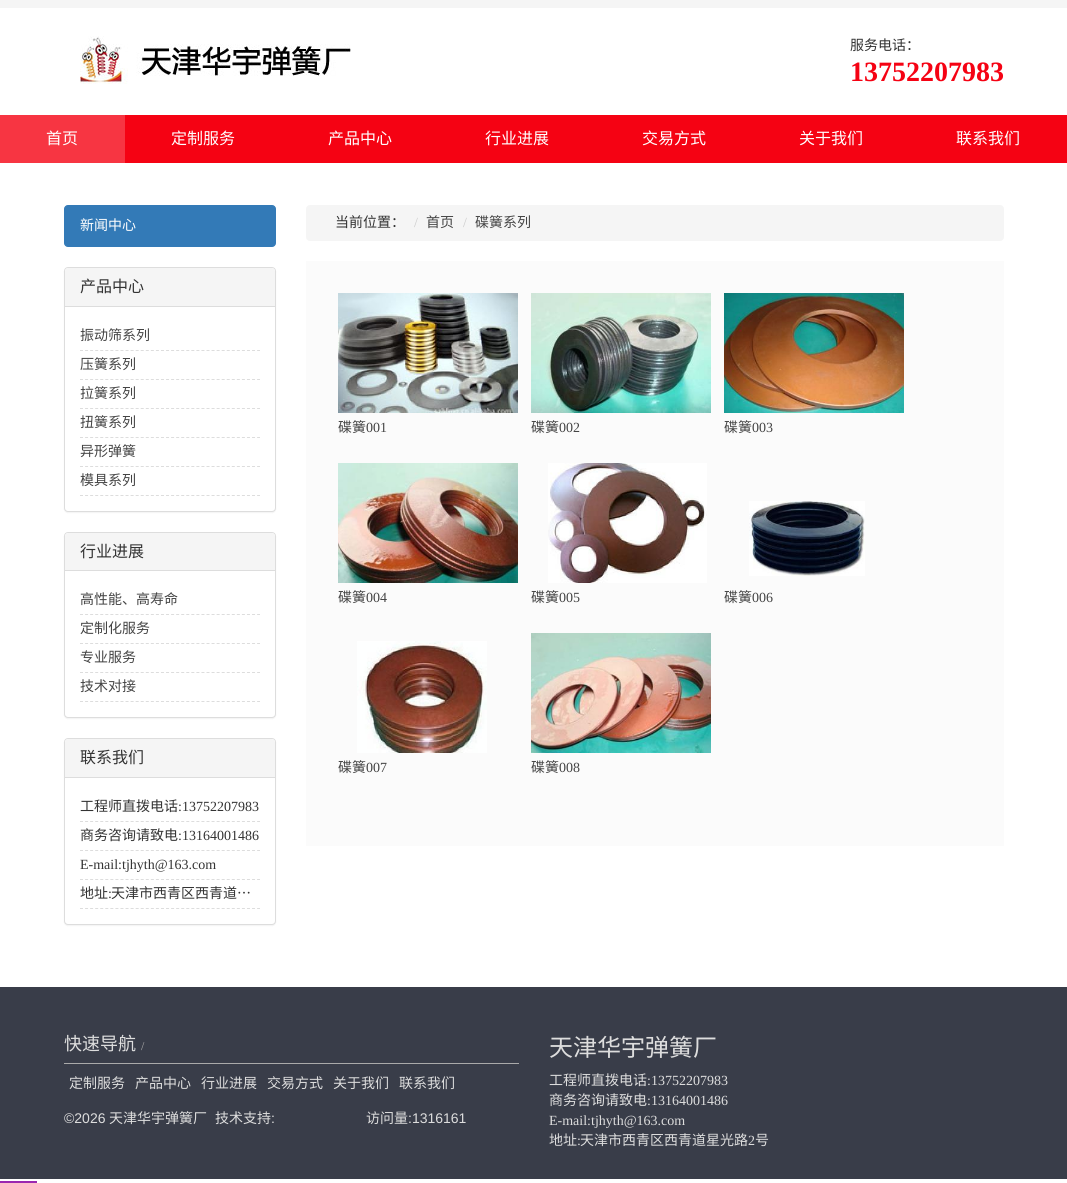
#include <cairo/cairo.h>
#include <math.h>
#include <stddef.h>

static cairo_t *cr;

static void use_color(int r, int g, int b) {
  cairo_set_source_rgb(cr, r / 255.0, g / 255.0, b / 255.0);
}

static void text(double x, double y, const char *s, const char *family, double size, int italic, int bold, int r, int g, int b) {
  cairo_select_font_face(cr, family, italic ? CAIRO_FONT_SLANT_ITALIC : CAIRO_FONT_SLANT_NORMAL,
    bold ? CAIRO_FONT_WEIGHT_BOLD : CAIRO_FONT_WEIGHT_NORMAL);
  cairo_set_font_size(cr, size);
  use_color(r, g, b);
  cairo_move_to(cr, x, y);
  cairo_show_text(cr, s);
}

static void box(double x, double y, double w, double h, int r, int g, int b) {
  use_color(r, g, b);
  cairo_rectangle(cr, x, y, w, h);
  cairo_fill(cr);
}

static void round_rect(double x, double y, double w, double h, double r) {
  cairo_new_sub_path(cr);
  cairo_arc(cr, x + w - r, y + h - r, r, 0, M_PI / 2);
  cairo_arc(cr, x + r, y + h - r, r, M_PI / 2, M_PI);
  cairo_arc(cr, x + r, y + r, r, M_PI, 1.5 * M_PI);
  cairo_arc(cr, x + w - r, y + r, r, 1.5 * M_PI, 2 * M_PI);
  cairo_close_path(cr);
}

static void shadow(double x, double y, double w, double h, double r, double blur, double alpha) {
  cairo_push_group_with_content(cr, CAIRO_CONTENT_ALPHA);
  cairo_set_operator(cr, CAIRO_OPERATOR_SOURCE);
  for (int i = 15; i >= -15 && fmin(w, h) + blur * i / 3 > 0; i -= 2) {
    double e = blur * i / 6;
    cairo_set_source_rgba(cr, 0, 0, 0, alpha * erfc((i - 1) / 8.5) / 2);
    round_rect(x - e, y - e, w + 2 * e, h + 2 * e, fmax(0, fmin(r + e + blur * .6, fmin(w, h) / 2 + e)));
    cairo_fill(cr);
  }
  cairo_pattern_t *soft = cairo_pop_group(cr);
  cairo_mask(cr, soft);
  cairo_pattern_destroy(soft);
}

static void picture(const char *path, double x, double y, double w, double h) {
  cairo_surface_t *image = cairo_image_surface_create_from_png(path);
  cairo_save(cr);
  cairo_set_source_surface(cr, image, x, y);
  cairo_rectangle(cr, x, y, w, h);
  cairo_fill(cr);
  cairo_restore(cr);
  cairo_surface_destroy(image);
}

static void draw(void) {
  use_color(255, 255, 255);
  cairo_paint(cr);
  box(0, 0, 1067, 8, 245, 245, 245);
  picture("img_01.png", 80, 36, 271, 48);
  box(125, 115, 942, 48, 245, 2, 19);
  box(0, 115, 125, 48, 247, 53, 66);
  use_color(51, 122, 183);
  round_rect(64.5, 205.5, 211, 41, 3.5);
  cairo_fill_preserve(cr);
  cairo_set_line_width(cr, 1);
  cairo_stroke(cr);
  use_color(0, 0, 0);
  shadow(64, 268, 212, 245, 4, 0.5, 0.05);
  use_color(255, 255, 255);
  round_rect(64.5, 267.5, 211, 244, 3.5);
  cairo_fill_preserve(cr);
  use_color(221, 221, 221);
  cairo_stroke(cr);
  use_color(245, 245, 245);
  cairo_new_path(cr);
  cairo_move_to(cr, 68, 268);
  cairo_line_to(cr, 272, 268);
  cairo_curve_to(cr, 273.5, 268, 275, 269.5, 275, 271);
  cairo_line_to(cr, 275, 307);
  cairo_line_to(cr, 65, 307);
  cairo_line_to(cr, 65, 271);
  cairo_curve_to(cr, 65, 269.5, 66.5, 268, 68, 268);
  cairo_close_path(cr);
  cairo_fill(cr);
  box(65, 306, 210, 1, 221, 221, 221);
  cairo_new_path(cr);
  cairo_move_to(cr, 80, 350.5);
  cairo_line_to(cr, 260, 350.5);
  cairo_set_dash(cr, (double[]){3, 2.06}, 2, 0);
  cairo_stroke(cr);
  cairo_new_path(cr);
  cairo_move_to(cr, 80, 379.5);
  cairo_line_to(cr, 260, 379.5);
  cairo_stroke(cr);
  cairo_new_path(cr);
  cairo_move_to(cr, 80, 408.5);
  cairo_line_to(cr, 260, 408.5);
  cairo_stroke(cr);
  cairo_new_path(cr);
  cairo_move_to(cr, 80, 437.5);
  cairo_line_to(cr, 260, 437.5);
  cairo_stroke(cr);
  cairo_new_path(cr);
  cairo_move_to(cr, 80, 466.5);
  cairo_line_to(cr, 260, 466.5);
  cairo_stroke(cr);
  cairo_new_path(cr);
  cairo_move_to(cr, 80, 495.5);
  cairo_line_to(cr, 260, 495.5);
  cairo_stroke(cr);
  use_color(0, 0, 0);
  shadow(64, 533, 212, 186, 4, 0.5, 0.05);
  use_color(255, 255, 255);
  round_rect(64.5, 532.5, 211, 185, 3.5);
  cairo_fill_preserve(cr);
  use_color(221, 221, 221);
  cairo_set_dash(cr, NULL, 0, 0);
  cairo_stroke(cr);
  use_color(245, 245, 245);
  cairo_new_path(cr);
  cairo_move_to(cr, 68, 533);
  cairo_line_to(cr, 272, 533);
  cairo_curve_to(cr, 273.5, 533, 275, 534.5, 275, 536);
  cairo_line_to(cr, 275, 571);
  cairo_line_to(cr, 65, 571);
  cairo_line_to(cr, 65, 536);
  cairo_curve_to(cr, 65, 534.5, 66.5, 533, 68, 533);
  cairo_close_path(cr);
  cairo_fill(cr);
  box(65, 570, 210, 1, 221, 221, 221);
  cairo_new_path(cr);
  cairo_move_to(cr, 80, 614.5);
  cairo_line_to(cr, 260, 614.5);
  cairo_set_dash(cr, (double[]){3, 2.06}, 2, 0);
  cairo_stroke(cr);
  cairo_new_path(cr);
  cairo_move_to(cr, 80, 643.5);
  cairo_line_to(cr, 260, 643.5);
  cairo_stroke(cr);
  cairo_new_path(cr);
  cairo_move_to(cr, 80, 672.5);
  cairo_line_to(cr, 260, 672.5);
  cairo_stroke(cr);
  cairo_new_path(cr);
  cairo_move_to(cr, 80, 701.5);
  cairo_line_to(cr, 260, 701.5);
  cairo_stroke(cr);
  use_color(0, 0, 0);
  shadow(64, 739, 212, 187, 4, 0.5, 0.05);
  use_color(255, 255, 255);
  round_rect(64.5, 738.5, 211, 186, 3.5);
  cairo_fill_preserve(cr);
  use_color(221, 221, 221);
  cairo_set_dash(cr, NULL, 0, 0);
  cairo_stroke(cr);
  use_color(245, 245, 245);
  cairo_new_path(cr);
  cairo_move_to(cr, 68, 739);
  cairo_line_to(cr, 272, 739);
  cairo_curve_to(cr, 273.5, 739, 275, 740.5, 275, 742);
  cairo_line_to(cr, 275, 778);
  cairo_line_to(cr, 65, 778);
  cairo_line_to(cr, 65, 742);
  cairo_curve_to(cr, 65, 740.5, 66.5, 739, 68, 739);
  cairo_close_path(cr);
  cairo_fill(cr);
  box(65, 777, 210, 1, 221, 221, 221);
  cairo_new_path(cr);
  cairo_move_to(cr, 80, 821.5);
  cairo_line_to(cr, 260, 821.5);
  cairo_set_dash(cr, (double[]){3, 2.06}, 2, 0);
  cairo_stroke(cr);
  cairo_new_path(cr);
  cairo_move_to(cr, 80, 850.5);
  cairo_line_to(cr, 260, 850.5);
  cairo_stroke(cr);
  cairo_new_path(cr);
  cairo_move_to(cr, 80, 879.5);
  cairo_line_to(cr, 260, 879.5);
  cairo_stroke(cr);
  cairo_new_path(cr);
  cairo_move_to(cr, 80, 908.5);
  cairo_line_to(cr, 260, 908.5);
  cairo_stroke(cr);
  use_color(245, 245, 245);
  round_rect(306, 205, 698, 36, 4);
  cairo_fill(cr);
  box(306, 261, 698, 585, 251, 251, 251);
  picture("img_02.png", 338, 293, 180, 120);
  picture("img_03.png", 531, 293, 180, 120);
  picture("img_04.png", 724, 293, 180, 120);
  picture("img_05.png", 338, 463, 180, 120);
  picture("img_06.png", 548, 463, 159, 120);
  picture("img_07.png", 749, 501, 116, 75);
  picture("img_08.png", 357, 641, 130, 112);
  picture("img_09.png", 531, 633, 180, 120);
  box(0, 987, 1067, 192, 57, 61, 73);
  box(64, 1063, 455, 1, 170, 170, 170);
  box(0, 1181, 37, 2, 155, 39, 176);
  text(850, 50, "服务电话：", "Noto Sans CJK SC", 14, 0, 0, 51, 51, 51);
  text(850, 81, "13752207983", "Liberation Serif", 28, 0, 1, 245, 2, 19);
  text(46, 144, "首页", "Noto Sans CJK SC", 16, 0, 0, 255, 255, 255);
  text(171, 144, "定制服务", "Noto Sans CJK SC", 16, 0, 0, 255, 255, 255);
  text(328, 144, "产品中心", "Noto Sans CJK SC", 16, 0, 0, 255, 255, 255);
  text(485, 144, "行业进展", "Noto Sans CJK SC", 16, 0, 0, 255, 255, 255);
  text(642, 144, "交易方式", "Noto Sans CJK SC", 16, 0, 0, 255, 255, 255);
  text(799, 144, "关于我们", "Noto Sans CJK SC", 16, 0, 0, 255, 255, 255);
  text(956, 144, "联系我们", "Noto Sans CJK SC", 16, 0, 0, 255, 255, 255);
  text(80, 230, "新闻中心", "Noto Sans CJK SC", 14, 0, 0, 255, 255, 255);
  text(80, 292, "产品中心", "Noto Sans CJK SC", 16, 0, 0, 51, 51, 51);
  text(80, 340, "振动筛系列", "Noto Sans CJK SC", 14, 0, 0, 68, 68, 68);
  text(80, 369, "压簧系列", "Noto Sans CJK SC", 14, 0, 0, 68, 68, 68);
  text(80, 398, "拉簧系列", "Noto Sans CJK SC", 14, 0, 0, 68, 68, 68);
  text(80, 427, "扭簧系列", "Noto Sans CJK SC", 14, 0, 0, 68, 68, 68);
  text(80, 456, "异形弹簧", "Noto Sans CJK SC", 14, 0, 0, 68, 68, 68);
  text(80, 485, "模具系列", "Noto Sans CJK SC", 14, 0, 0, 68, 68, 68);
  text(80, 557, "行业进展", "Noto Sans CJK SC", 16, 0, 0, 51, 51, 51);
  text(80, 604, "高性能、高寿命", "Noto Sans CJK SC", 14, 0, 0, 68, 68, 68);
  text(80, 633, "定制化服务", "Noto Sans CJK SC", 14, 0, 0, 68, 68, 68);
  text(80, 662, "专业服务", "Noto Sans CJK SC", 14, 0, 0, 68, 68, 68);
  text(80, 691, "技术对接", "Noto Sans CJK SC", 14, 0, 0, 68, 68, 68);
  text(80, 763, "联系我们", "Noto Sans CJK SC", 16, 0, 0, 51, 51, 51);
  text(80, 811, "工程师直拨电话", "Noto Sans CJK SC", 14, 0, 0, 51, 51, 51);
  text(178, 811, ":13752207983", "Liberation Serif", 14, 0, 0, 51, 51, 51);
  text(80, 840, "商务咨询请致电", "Noto Sans CJK SC", 14, 0, 0, 51, 51, 51);
  text(178, 840, ":13164001486", "Liberation Serif", 14, 0, 0, 51, 51, 51);
  text(80, 869, "E-mail:tjhyth@163.com", "Liberation Serif", 14, 0, 0, 51, 51, 51);
  text(80, 898, "地址", "Noto Sans CJK SC", 14, 0, 0, 51, 51, 51);
  text(108, 898, ":", "Liberation Serif", 14, 0, 0, 51, 51, 51);
  text(111, 898, "天津市西青区西青道…", "Noto Sans CJK SC", 14, 0, 0, 51, 51, 51);
  text(335, 227, "当前位置：", "Noto Sans CJK SC", 14, 0, 0, 51, 51, 51);
  text(414, 227, "/", "Liberation Serif", 14, 0, 0, 204, 204, 204);
  text(426, 227, "首页", "Noto Sans CJK SC", 14, 0, 0, 68, 68, 68);
  text(463, 227, "/", "Liberation Serif", 14, 0, 0, 204, 204, 204);
  text(475, 227, "碟簧系列", "Noto Sans CJK SC", 14, 0, 0, 68, 68, 68);
  text(338, 432, "碟簧", "Noto Sans CJK SC", 14, 0, 0, 68, 68, 68);
  text(366, 432, "001", "Liberation Serif", 14, 0, 0, 68, 68, 68);
  text(531, 432, "碟簧", "Noto Sans CJK SC", 14, 0, 0, 68, 68, 68);
  text(559, 432, "002", "Liberation Serif", 14, 0, 0, 68, 68, 68);
  text(724, 432, "碟簧", "Noto Sans CJK SC", 14, 0, 0, 68, 68, 68);
  text(752, 432, "003", "Liberation Serif", 14, 0, 0, 68, 68, 68);
  text(338, 602, "碟簧", "Noto Sans CJK SC", 14, 0, 0, 68, 68, 68);
  text(366, 602, "004", "Liberation Serif", 14, 0, 0, 68, 68, 68);
  text(531, 602, "碟簧", "Noto Sans CJK SC", 14, 0, 0, 68, 68, 68);
  text(559, 602, "005", "Liberation Serif", 14, 0, 0, 68, 68, 68);
  text(724, 602, "碟簧", "Noto Sans CJK SC", 14, 0, 0, 68, 68, 68);
  text(752, 602, "006", "Liberation Serif", 14, 0, 0, 68, 68, 68);
  text(338, 772, "碟簧", "Noto Sans CJK SC", 14, 0, 0, 68, 68, 68);
  text(366, 772, "007", "Liberation Serif", 14, 0, 0, 68, 68, 68);
  text(531, 772, "碟簧", "Noto Sans CJK SC", 14, 0, 0, 68, 68, 68);
  text(559, 772, "008", "Liberation Serif", 14, 0, 0, 68, 68, 68);
  text(64, 1050, "快速导航", "Noto Sans CJK SC", 18, 0, 0, 221, 221, 221);
  text(141, 1050, "/", "Liberation Serif", 12, 0, 0, 170, 170, 170);
  text(69, 1088, "定制服务", "Noto Sans CJK SC", 14, 0, 0, 221, 221, 221);
  text(135, 1088, "产品中心", "Noto Sans CJK SC", 14, 0, 0, 221, 221, 221);
  text(201, 1088, "行业进展", "Noto Sans CJK SC", 14, 0, 0, 221, 221, 221);
  text(267, 1088, "交易方式", "Noto Sans CJK SC", 14, 0, 0, 221, 221, 221);
  text(333, 1088, "关于我们", "Noto Sans CJK SC", 14, 0, 0, 221, 221, 221);
  text(399, 1088, "联系我们", "Noto Sans CJK SC", 14, 0, 0, 221, 221, 221);
  text(64, 1123, "©2026", "Liberation Sans", 14, 0, 0, 221, 221, 221);
  text(109, 1123, "天津华宇弹簧厂", "Noto Sans CJK SC", 14, 0, 0, 221, 221, 221);
  text(215, 1123, "技术支持", "Noto Sans CJK SC", 14, 0, 0, 221, 221, 221);
  text(271, 1123, ":", "Liberation Sans", 14, 0, 0, 221, 221, 221);
  text(366, 1123, "访问量", "Noto Sans CJK SC", 14, 0, 0, 221, 221, 221);
  text(408, 1123, ":1316161", "Liberation Sans", 14, 0, 0, 221, 221, 221);
  text(549, 1056, "天津华宇弹簧厂", "Noto Sans CJK SC", 24, 0, 0, 221, 221, 221);
  text(549, 1085, "工程师直拨电话", "Noto Sans CJK SC", 14, 0, 0, 221, 221, 221);
  text(647, 1085, ":13752207983", "Liberation Serif", 14, 0, 0, 221, 221, 221);
  text(549, 1105, "商务咨询请致电", "Noto Sans CJK SC", 14, 0, 0, 221, 221, 221);
  text(647, 1105, ":13164001486", "Liberation Serif", 14, 0, 0, 221, 221, 221);
  text(549, 1125, "E-mail:tjhyth@163.com", "Liberation Serif", 14, 0, 0, 221, 221, 221);
  text(549, 1145, "地址", "Noto Sans CJK SC", 14, 0, 0, 221, 221, 221);
  text(577, 1145, ":", "Liberation Serif", 14, 0, 0, 221, 221, 221);
  text(580, 1145, "天津市西青区西青道星光路", "Noto Sans CJK SC", 14, 0, 0, 221, 221, 221);
  text(748, 1145, "2", "Liberation Serif", 14, 0, 0, 221, 221, 221);
  text(755, 1145, "号", "Noto Sans CJK SC", 14, 0, 0, 221, 221, 221);
}

int main(void) {
  cairo_surface_t *surface = cairo_image_surface_create(CAIRO_FORMAT_RGB24, 1067, 1183);
  cr = cairo_create(surface);
  cairo_font_options_t *options = cairo_font_options_create();
  cairo_font_options_set_hint_metrics(options, CAIRO_HINT_METRICS_OFF);
  cairo_font_options_set_hint_style(options, CAIRO_HINT_STYLE_NONE);
  cairo_set_font_options(cr, options);
  cairo_set_miter_limit(cr, 4);
  draw();
  cairo_surface_write_to_png(surface, "out.png");
  cairo_font_options_destroy(options);
  cairo_destroy(cr);
  cairo_surface_destroy(surface);
  return 0;
}
